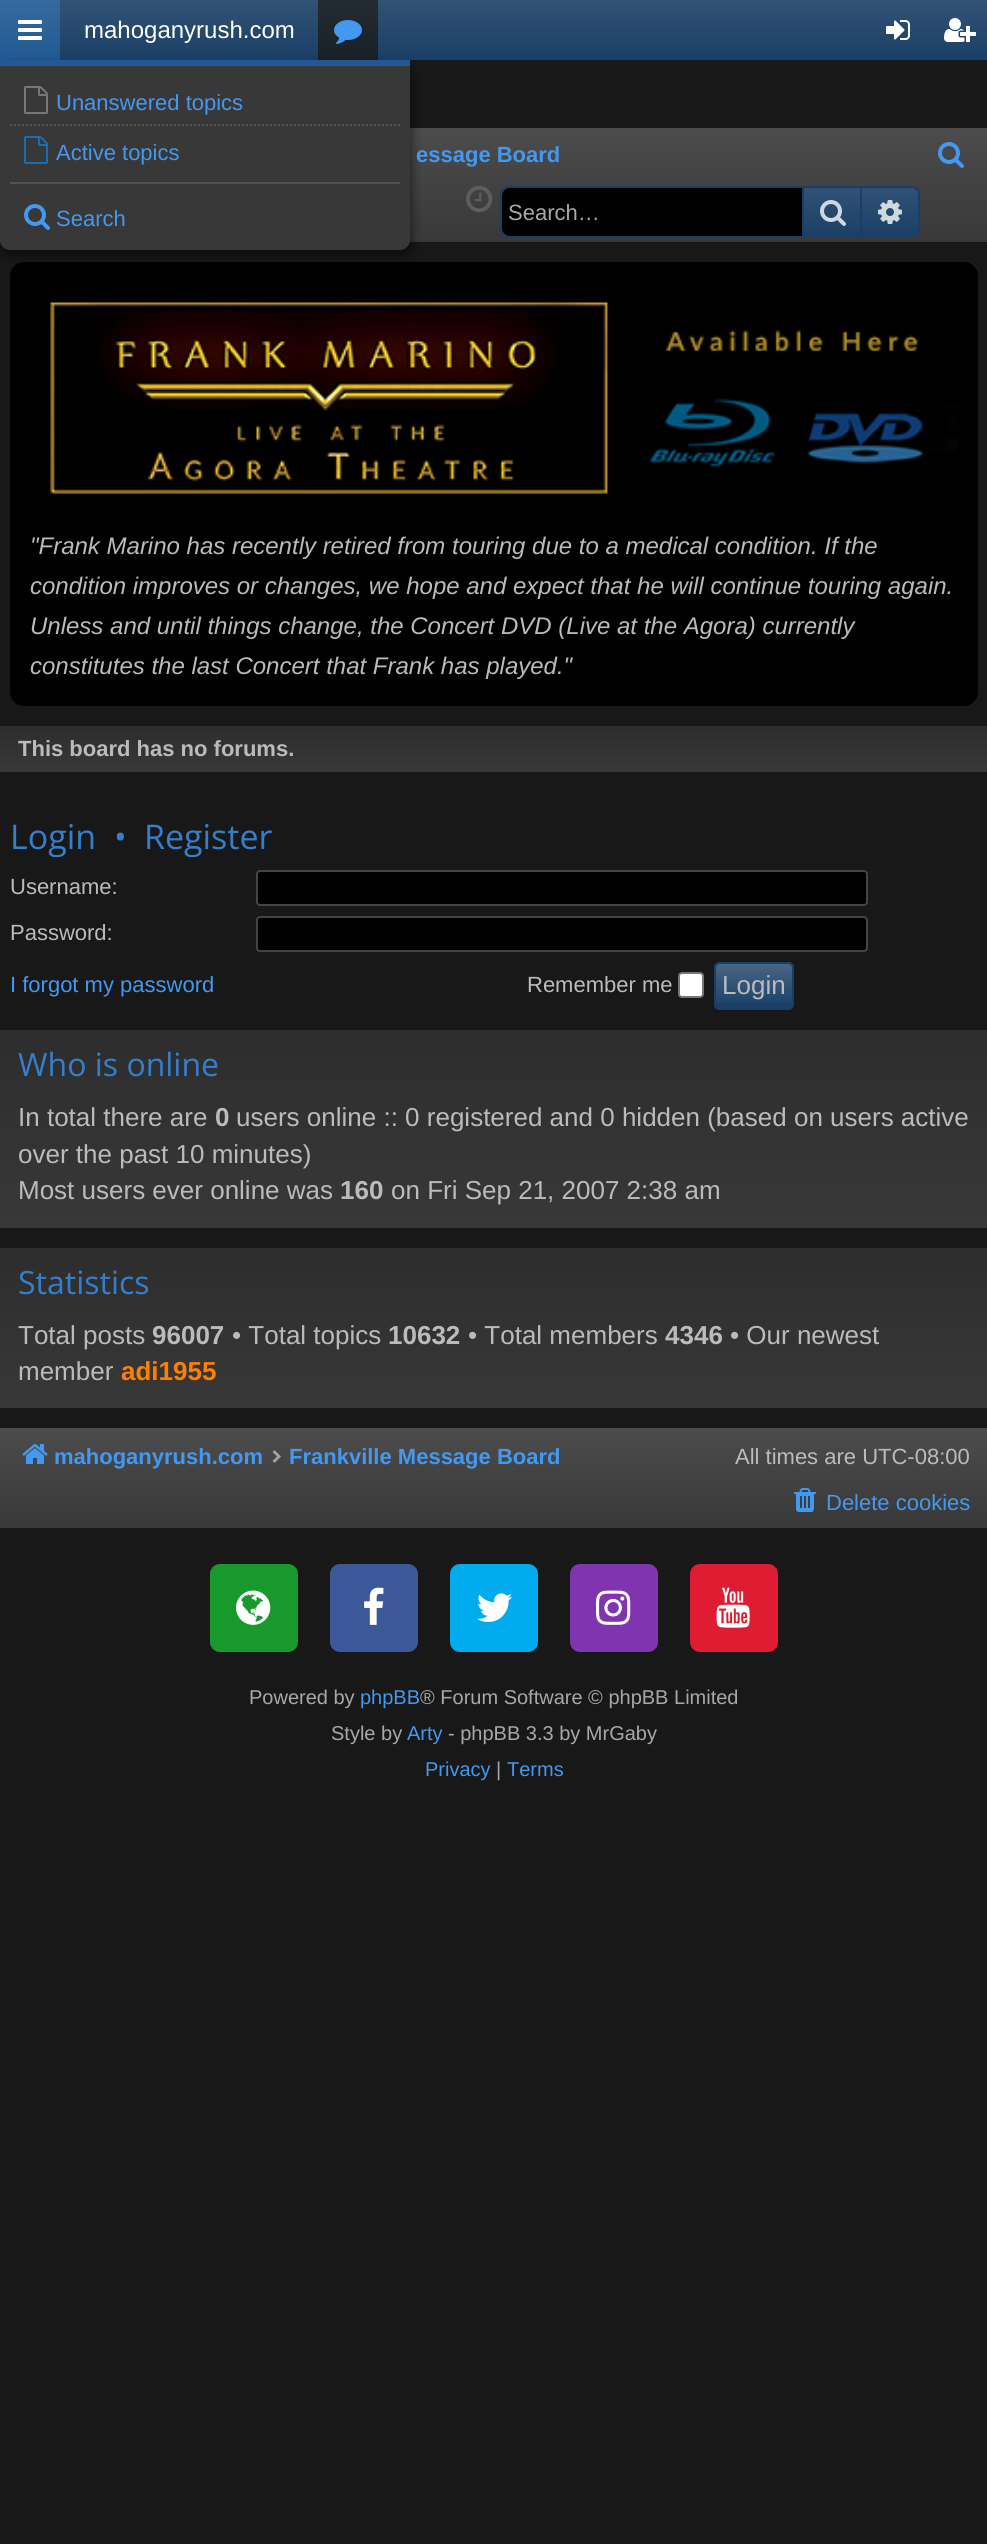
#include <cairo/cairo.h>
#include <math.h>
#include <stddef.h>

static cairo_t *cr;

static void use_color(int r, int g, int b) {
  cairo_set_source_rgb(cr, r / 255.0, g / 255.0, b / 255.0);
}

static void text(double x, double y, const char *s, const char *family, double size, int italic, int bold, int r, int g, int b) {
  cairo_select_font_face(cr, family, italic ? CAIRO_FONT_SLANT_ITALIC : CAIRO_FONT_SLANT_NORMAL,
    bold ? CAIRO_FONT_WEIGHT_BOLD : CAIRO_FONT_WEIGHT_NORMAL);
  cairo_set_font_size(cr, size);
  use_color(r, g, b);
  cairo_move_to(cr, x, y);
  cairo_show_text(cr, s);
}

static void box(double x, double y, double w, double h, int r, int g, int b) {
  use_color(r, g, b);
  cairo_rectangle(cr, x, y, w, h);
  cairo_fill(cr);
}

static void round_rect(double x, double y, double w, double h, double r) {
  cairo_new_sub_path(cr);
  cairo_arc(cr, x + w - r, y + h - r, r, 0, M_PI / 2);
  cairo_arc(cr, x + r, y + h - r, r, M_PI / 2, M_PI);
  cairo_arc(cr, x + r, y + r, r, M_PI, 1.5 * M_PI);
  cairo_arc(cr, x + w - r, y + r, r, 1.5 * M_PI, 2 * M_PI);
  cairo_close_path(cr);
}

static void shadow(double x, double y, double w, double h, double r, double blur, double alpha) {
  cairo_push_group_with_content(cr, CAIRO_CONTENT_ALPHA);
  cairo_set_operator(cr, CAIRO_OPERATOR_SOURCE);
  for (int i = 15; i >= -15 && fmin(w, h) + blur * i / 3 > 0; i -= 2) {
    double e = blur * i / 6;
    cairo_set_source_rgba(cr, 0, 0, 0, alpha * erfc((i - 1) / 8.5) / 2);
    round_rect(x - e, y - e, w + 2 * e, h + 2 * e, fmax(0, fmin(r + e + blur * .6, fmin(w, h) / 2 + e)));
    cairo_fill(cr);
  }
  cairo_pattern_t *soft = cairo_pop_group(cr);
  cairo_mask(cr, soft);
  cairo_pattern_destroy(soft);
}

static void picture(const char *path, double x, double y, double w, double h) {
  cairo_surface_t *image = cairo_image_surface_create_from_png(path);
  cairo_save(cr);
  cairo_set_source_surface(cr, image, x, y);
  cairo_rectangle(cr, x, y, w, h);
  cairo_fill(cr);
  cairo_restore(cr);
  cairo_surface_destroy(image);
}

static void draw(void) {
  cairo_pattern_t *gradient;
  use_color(24, 24, 24);
  cairo_paint(cr);
  gradient = cairo_pattern_create_linear(494, 0, 494, 60);
  cairo_pattern_add_color_stop_rgba(gradient, 0, 0.192, 0.322, 0.459, 1);
  cairo_pattern_add_color_stop_rgba(gradient, 1, 0.102, 0.247, 0.4, 1);
  cairo_set_source(cr, gradient);
  cairo_pattern_destroy(gradient);
  cairo_rectangle(cr, 60, 0, 927, 60);
  cairo_fill(cr);
  gradient = cairo_pattern_create_linear(348, 0, 348, 60);
  cairo_pattern_add_color_stop_rgba(gradient, 0, 0.141, 0.169, 0.2, 1);
  cairo_pattern_add_color_stop_rgba(gradient, 1, 0.094, 0.125, 0.157, 1);
  cairo_set_source(cr, gradient);
  cairo_pattern_destroy(gradient);
  cairo_rectangle(cr, 318, 0, 60, 60);
  cairo_fill(cr);
  picture("img_01.png", 334, 20, 28, 24);
  gradient = cairo_pattern_create_linear(30, 0, 30, 60);
  cairo_pattern_add_color_stop_rgba(gradient, 0, 0.212, 0.416, 0.62, 1);
  cairo_pattern_add_color_stop_rgba(gradient, 1, 0.125, 0.349, 0.576, 1);
  cairo_set_source(cr, gradient);
  cairo_pattern_destroy(gradient);
  cairo_rectangle(cr, 0, 0, 60, 60);
  cairo_fill(cr);
  picture("img_02.png", 18, 20, 24, 20);
  gradient = cairo_pattern_create_linear(494, 128, 494, 242);
  cairo_pattern_add_color_stop_rgba(gradient, 0, 0.298, 0.298, 0.298, 1);
  cairo_pattern_add_color_stop_rgba(gradient, 1, 0.22, 0.22, 0.22, 1);
  cairo_set_source(cr, gradient);
  cairo_pattern_destroy(gradient);
  cairo_rectangle(cr, 0, 128, 987, 114);
  cairo_fill(cr);
  use_color(0, 0, 0);
  round_rect(10, 262, 968, 444, 14);
  cairo_fill(cr);
  use_color(0, 0, 0);
  shadow(2, 66, 410, 190, 10, 5, 0.5);
  use_color(56, 56, 56);
  cairo_new_path(cr);
  cairo_move_to(cr, 0, 66);
  cairo_line_to(cr, 410, 66);
  cairo_line_to(cr, 410, 240);
  cairo_curve_to(cr, 410, 245.5, 405.5, 250, 400, 250);
  cairo_line_to(cr, 10, 250);
  cairo_curve_to(cr, 4.5, 250, 0, 245.5, 0, 240);
  cairo_close_path(cr);
  cairo_fill(cr);
  box(0, 60, 410, 6, 32, 89, 147);
  picture("img_03.png", 24, 86, 24, 28);
  cairo_new_path(cr);
  cairo_move_to(cr, 10, 125);
  cairo_line_to(cr, 400, 125);
  use_color(82, 82, 82);
  cairo_set_dash(cr, (double[]){2, 2}, 2, 0);
  cairo_stroke(cr);
  picture("img_04.png", 24, 136, 24, 28);
  box(10, 182, 390, 2, 82, 82, 82);
  picture("img_05.png", 24, 204, 26, 26);
  picture("img_06.png", 886, 20, 24, 20);
  picture("img_07.png", 944, 18, 32, 24);
  picture("img_08.png", 938, 142, 26, 26);
  picture("img_09.png", 466, 185, 27, 28);
  round_rect(501, 187, 418, 50, 7);
  use_color(26, 63, 102);
  cairo_set_dash(cr, NULL, 0, 0);
  cairo_stroke(cr);
  use_color(0, 0, 0);
  cairo_new_path(cr);
  cairo_move_to(cr, 510, 188);
  cairo_line_to(cr, 802, 188);
  cairo_line_to(cr, 802, 236);
  cairo_line_to(cr, 510, 236);
  cairo_curve_to(cr, 505.5, 236, 502, 232.5, 502, 228);
  cairo_line_to(cr, 502, 196);
  cairo_curve_to(cr, 502, 191.5, 505.5, 188, 510, 188);
  cairo_close_path(cr);
  cairo_fill(cr);
  gradient = cairo_pattern_create_linear(832, 188, 832, 236);
  cairo_pattern_add_color_stop_rgba(gradient, 0, 0.192, 0.322, 0.459, 1);
  cairo_pattern_add_color_stop_rgba(gradient, 1, 0.102, 0.247, 0.4, 1);
  cairo_set_source(cr, gradient);
  cairo_pattern_destroy(gradient);
  cairo_rectangle(cr, 804, 188, 56, 48);
  cairo_fill(cr);
  box(860, 188, 2, 48, 26, 63, 102);
  box(802, 188, 2, 48, 26, 63, 102);
  picture("img_10.png", 820, 200, 26, 26);
  cairo_new_path(cr);
  cairo_move_to(cr, 862, 188);
  cairo_line_to(cr, 910, 188);
  cairo_curve_to(cr, 914.5, 188, 918, 191.5, 918, 196);
  cairo_line_to(cr, 918, 228);
  cairo_curve_to(cr, 918, 232.5, 914.5, 236, 910, 236);
  cairo_line_to(cr, 862, 236);
  cairo_close_path(cr);
  cairo_fill(cr);
  gradient = cairo_pattern_create_linear(890, 188, 890, 236);
  cairo_pattern_add_color_stop_rgba(gradient, 0, 1, 1, 1, 0.1);
  cairo_pattern_add_color_stop_rgba(gradient, 1, 1, 1, 1, 0);
  cairo_set_source(cr, gradient);
  cairo_pattern_destroy(gradient);
  cairo_new_path(cr);
  cairo_move_to(cr, 862, 188);
  cairo_line_to(cr, 910, 188);
  cairo_curve_to(cr, 914.5, 188, 918, 191.5, 918, 196);
  cairo_line_to(cr, 918, 228);
  cairo_curve_to(cr, 918, 232.5, 914.5, 236, 910, 236);
  cairo_line_to(cr, 862, 236);
  cairo_close_path(cr);
  cairo_fill(cr);
  picture("img_11.png", 878, 200, 24, 24);
  picture("img_12.png", 50, 302, 908, 193);
  gradient = cairo_pattern_create_linear(494, 726, 494, 772);
  cairo_pattern_add_color_stop_rgba(gradient, 0, 0.176, 0.176, 0.176, 1);
  cairo_pattern_add_color_stop_rgba(gradient, 1, 0.22, 0.22, 0.22, 1);
  cairo_set_source(cr, gradient);
  cairo_pattern_destroy(gradient);
  cairo_rectangle(cr, 0, 726, 987, 46);
  cairo_fill(cr);
  use_color(0, 0, 0);
  round_rect(257, 871, 610, 34, 3);
  cairo_fill_preserve(cr);
  use_color(68, 68, 68);
  cairo_stroke(cr);
  use_color(0, 0, 0);
  round_rect(257, 917, 610, 34, 3);
  cairo_fill_preserve(cr);
  use_color(68, 68, 68);
  cairo_stroke(cr);
  use_color(255, 255, 255);
  round_rect(679, 973, 24, 24, 3);
  cairo_fill_preserve(cr);
  use_color(118, 118, 118);
  cairo_stroke(cr);
  use_color(26, 63, 102);
  round_rect(714, 962, 80, 48, 6);
  cairo_fill(cr);
  cairo_save(cr);
  round_rect(714, 962, 80, 48, 6);
  cairo_clip(cr);
  gradient = cairo_pattern_create_linear(754, 964, 754, 1008);
  cairo_pattern_add_color_stop_rgba(gradient, 0, 1, 1, 1, 0.2);
  cairo_pattern_add_color_stop_rgba(gradient, 1, 1, 1, 1, 0);
  cairo_set_source(cr, gradient);
  cairo_pattern_destroy(gradient);
  cairo_rectangle(cr, 714, 964, 80, 39);
  cairo_fill(cr);
  cairo_restore(cr);
  round_rect(715, 963, 78, 46, 5);
  cairo_stroke(cr);
  gradient = cairo_pattern_create_linear(494, 1030, 494, 1228);
  cairo_pattern_add_color_stop_rgba(gradient, 0, 0.176, 0.176, 0.176, 1);
  cairo_pattern_add_color_stop_rgba(gradient, 1, 0.22, 0.22, 0.22, 1);
  cairo_set_source(cr, gradient);
  cairo_pattern_destroy(gradient);
  cairo_rectangle(cr, 0, 1030, 987, 198);
  cairo_fill(cr);
  gradient = cairo_pattern_create_linear(494, 1248, 494, 1408);
  cairo_pattern_add_color_stop_rgba(gradient, 0, 0.176, 0.176, 0.176, 1);
  cairo_pattern_add_color_stop_rgba(gradient, 1, 0.22, 0.22, 0.22, 1);
  cairo_set_source(cr, gradient);
  cairo_pattern_destroy(gradient);
  cairo_rectangle(cr, 0, 1248, 987, 160);
  cairo_fill(cr);
  gradient = cairo_pattern_create_linear(494, 1428, 494, 1528);
  cairo_pattern_add_color_stop_rgba(gradient, 0, 0.298, 0.298, 0.298, 1);
  cairo_pattern_add_color_stop_rgba(gradient, 1, 0.22, 0.22, 0.22, 1);
  cairo_set_source(cr, gradient);
  cairo_pattern_destroy(gradient);
  cairo_rectangle(cr, 0, 1428, 987, 100);
  cairo_fill(cr);
  picture("img_13.png", 22, 1444, 26, 20);
  picture("img_14.png", 272, 1450, 9, 13);
  picture("img_15.png", 794, 1488, 22, 24);
  use_color(24, 153, 44);
  round_rect(210, 1564, 88, 88, 10);
  cairo_fill(cr);
  picture("img_16.png", 236, 1590, 35, 35);
  use_color(59, 89, 152);
  round_rect(330, 1564, 88, 88, 10);
  cairo_fill(cr);
  picture("img_17.png", 364, 1587, 20, 38);
  use_color(0, 172, 237);
  round_rect(450, 1564, 88, 88, 10);
  cairo_fill(cr);
  picture("img_18.png", 477, 1593, 35, 29);
  use_color(129, 52, 175);
  round_rect(570, 1564, 88, 88, 10);
  cairo_fill(cr);
  picture("img_19.png", 596, 1590, 35, 35);
  use_color(223, 28, 49);
  round_rect(690, 1564, 88, 88, 10);
  cairo_fill(cr);
  picture("img_20.png", 716, 1587, 34, 41);
  text(84, 38, "mahoganyrush.com", "Liberation Sans", 24, 0, 0, 255, 255, 255);
  text(56, 110, "Unanswered topics", "Liberation Sans", 22, 0, 0, 67, 152, 239);
  text(56, 160, "Active topics", "Liberation Sans", 22, 0, 0, 67, 152, 239);
  text(56, 226, "Search", "Liberation Sans", 22, 0, 0, 67, 152, 239);
  text(416, 162, "essage Board", "Liberation Sans", 22, 0, 1, 67, 152, 239);
  text(508, 220, "Search…", "Liberation Sans", 22, 0, 0, 168, 168, 168);
  text(30, 554, "\"Frank Marino has recently retired from touring due to a medical condition. If the", "Liberation Sans", 24, 1, 0, 187, 187, 187);
  text(30, 594, "condition improves or changes, we hope and expect that he will continue touring again.", "Liberation Sans", 24, 1, 0, 187, 187, 187);
  text(30, 634, "Unless and until things change, the Concert DVD (Live at the Agora) currently", "Liberation Sans", 24, 1, 0, 187, 187, 187);
  text(30, 674, "constitutes the last Concert that Frank has played.\"", "Liberation Sans", 24, 1, 0, 187, 187, 187);
  text(18, 756, "This board has no forums.", "Liberation Sans", 22, 0, 1, 187, 187, 187);
  text(10, 849, "Login", "Open Sans", 34, 0, 0, 52, 127, 203);
  text(114, 849, "•", "Open Sans", 34, 0, 0, 52, 127, 203);
  text(144, 849, "Register", "Open Sans", 34, 0, 0, 52, 127, 203);
  text(10, 894, "Username:", "Liberation Sans", 22, 0, 0, 187, 187, 187);
  text(10, 940, "Password:", "Liberation Sans", 22, 0, 0, 187, 187, 187);
  text(10, 992, "I forgot my password", "Liberation Sans", 22, 0, 0, 67, 152, 239);
  text(527, 992, "Remember me", "Liberation Sans", 22, 0, 0, 187, 187, 187);
  text(722, 994, "Login", "Liberation Sans", 26, 0, 0, 187, 187, 187);
  text(18, 1076, "Who is online", "Open Sans", 32, 0, 0, 52, 127, 203);
  text(18, 1126, "In total there are", "Liberation Sans", 26, 0, 0, 187, 187, 187);
  text(215, 1126, "0", "Liberation Sans", 26, 0, 1, 187, 187, 187);
  text(236, 1126, "users online :: 0 registered and 0 hidden (based on users active", "Liberation Sans", 26, 0, 0, 187, 187, 187);
  text(18, 1163, "over the past 10 minutes)", "Liberation Sans", 26, 0, 0, 187, 187, 187);
  text(18, 1199, "Most users ever online was", "Liberation Sans", 26, 0, 0, 187, 187, 187);
  text(340, 1199, "160", "Liberation Sans", 26, 0, 1, 187, 187, 187);
  text(391, 1199, "on Fri Sep 21, 2007 2:38 am", "Liberation Sans", 26, 0, 0, 187, 187, 187);
  text(18, 1294, "Statistics", "Open Sans", 32, 0, 0, 52, 127, 203);
  text(18, 1344, "Total posts", "Liberation Sans", 26, 0, 0, 187, 187, 187);
  text(152, 1344, "96007", "Liberation Sans", 26, 0, 1, 187, 187, 187);
  text(232, 1344, "• Total topics", "Liberation Sans", 26, 0, 0, 187, 187, 187);
  text(388, 1344, "10632", "Liberation Sans", 26, 0, 1, 187, 187, 187);
  text(468, 1344, "• Total members", "Liberation Sans", 26, 0, 0, 187, 187, 187);
  text(665, 1344, "4346", "Liberation Sans", 26, 0, 1, 187, 187, 187);
  text(730, 1344, "• Our newest", "Liberation Sans", 26, 0, 0, 187, 187, 187);
  text(18, 1380, "member", "Liberation Sans", 26, 0, 0, 187, 187, 187);
  text(121, 1380, "adi1955", "Liberation Sans", 26, 0, 1, 255, 128, 0);
  text(54, 1464, "mahoganyrush.com", "Liberation Sans", 22, 0, 1, 67, 152, 239);
  text(289, 1464, "Frankville Message Board", "Liberation Sans", 22, 0, 1, 67, 152, 239);
  text(735, 1464, "All times are UTC-08:00", "Liberation Sans", 22, 0, 0, 187, 187, 187);
  text(826, 1510, "Delete cookies", "Liberation Sans", 22, 0, 0, 67, 152, 239);
  text(249, 1704, "Powered by", "Liberation Sans", 20, 0, 0, 168, 168, 168);
  text(360, 1704, "phpBB", "Liberation Sans", 20, 0, 0, 67, 152, 239);
  text(420, 1704, "® Forum Software © phpBB Limited", "Liberation Sans", 20, 0, 0, 168, 168, 168);
  text(331, 1740, "Style by", "Liberation Sans", 20, 0, 0, 168, 168, 168);
  text(407, 1740, "Arty", "Liberation Sans", 20, 0, 0, 67, 152, 239);
  text(448, 1740, "- phpBB 3.3 by MrGaby", "Liberation Sans", 20, 0, 0, 168, 168, 168);
  text(425, 1776, "Privacy", "Liberation Sans", 20, 0, 0, 67, 152, 239);
  text(496, 1776, "|", "Liberation Sans", 20, 0, 0, 168, 168, 168);
  text(507, 1776, "Terms", "Liberation Sans", 20, 0, 0, 67, 152, 239);
}

int main(void) {
  cairo_surface_t *surface = cairo_image_surface_create(CAIRO_FORMAT_RGB24, 987, 2544);
  cr = cairo_create(surface);
  cairo_font_options_t *options = cairo_font_options_create();
  cairo_font_options_set_hint_metrics(options, CAIRO_HINT_METRICS_OFF);
  cairo_font_options_set_hint_style(options, CAIRO_HINT_STYLE_NONE);
  cairo_set_font_options(cr, options);
  cairo_set_miter_limit(cr, 4);
  draw();
  cairo_surface_write_to_png(surface, "out.png");
  cairo_font_options_destroy(options);
  cairo_destroy(cr);
  cairo_surface_destroy(surface);
  return 0;
}
